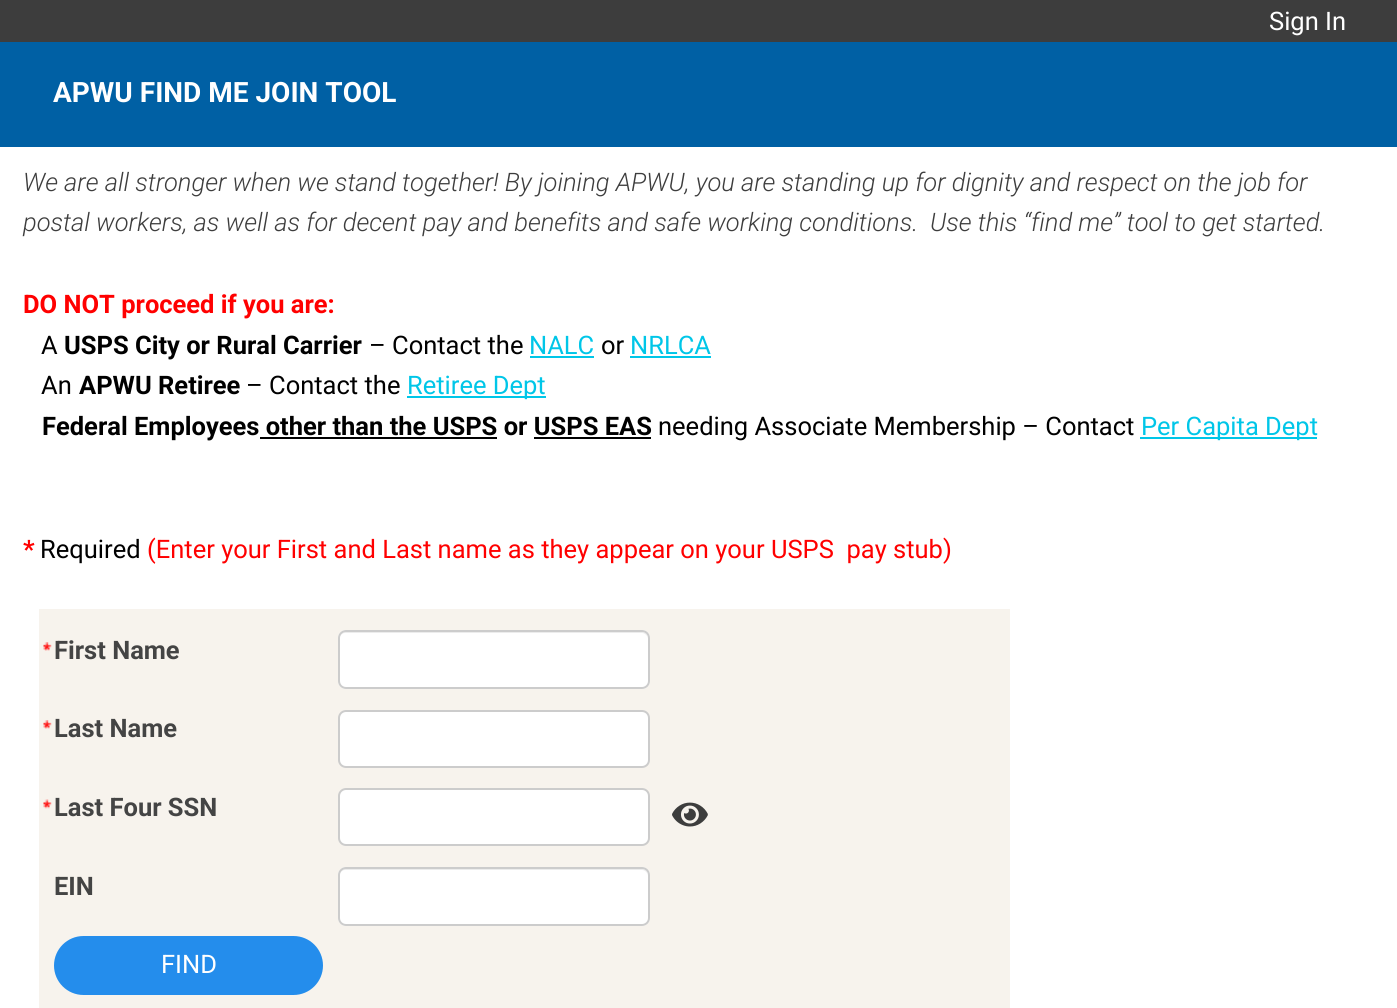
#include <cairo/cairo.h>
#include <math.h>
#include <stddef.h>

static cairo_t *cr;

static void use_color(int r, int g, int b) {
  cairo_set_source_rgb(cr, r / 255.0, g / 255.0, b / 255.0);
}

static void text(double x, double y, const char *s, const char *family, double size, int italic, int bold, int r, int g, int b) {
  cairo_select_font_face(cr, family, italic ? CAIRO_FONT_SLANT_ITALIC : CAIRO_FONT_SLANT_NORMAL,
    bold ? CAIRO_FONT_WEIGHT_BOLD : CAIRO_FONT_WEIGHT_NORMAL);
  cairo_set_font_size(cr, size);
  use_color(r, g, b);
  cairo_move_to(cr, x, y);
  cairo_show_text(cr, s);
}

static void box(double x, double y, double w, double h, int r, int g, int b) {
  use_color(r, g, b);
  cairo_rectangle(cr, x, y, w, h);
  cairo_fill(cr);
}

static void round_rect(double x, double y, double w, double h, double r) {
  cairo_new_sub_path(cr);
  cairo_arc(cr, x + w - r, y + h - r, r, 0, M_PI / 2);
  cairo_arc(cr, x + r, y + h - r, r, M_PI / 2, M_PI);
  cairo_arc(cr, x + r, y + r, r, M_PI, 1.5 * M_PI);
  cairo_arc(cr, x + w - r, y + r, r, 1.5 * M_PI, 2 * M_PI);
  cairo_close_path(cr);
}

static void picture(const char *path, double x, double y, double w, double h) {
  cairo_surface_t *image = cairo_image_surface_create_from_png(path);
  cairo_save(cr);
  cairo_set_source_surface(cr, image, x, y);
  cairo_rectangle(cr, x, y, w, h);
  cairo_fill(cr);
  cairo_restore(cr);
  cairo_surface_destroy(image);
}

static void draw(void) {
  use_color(255, 255, 255);
  cairo_paint(cr);
  box(0, 42, 1397, 105, 0, 96, 164);
  box(0, 0, 1397, 42, 61, 61, 61);
  box(530, 356, 64, 2, 0, 198, 232);
  box(630, 356, 81, 2, 0, 198, 232);
  box(407, 396, 139, 2, 0, 198, 232);
  box(260, 437, 237, 2, 0, 0, 0);
  box(534, 437, 117, 2, 0, 0, 0);
  box(1140, 437, 177, 2, 0, 198, 232);
  box(39, 609, 971, 399, 247, 243, 237);
  picture("img_01.png", 43, 642, 9, 9);
  use_color(255, 255, 255);
  round_rect(338, 630, 312, 59, 8);
  cairo_fill(cr);
  use_color(236, 236, 236);
  cairo_new_path(cr);
  cairo_move_to(cr, 345, 633);
  cairo_line_to(cr, 642, 633);
  cairo_curve_to(cr, 645, 633, 648, 636, 648, 639);
  cairo_curve_to(cr, 648, 635, 646, 632, 642, 632);
  cairo_line_to(cr, 345, 632);
  cairo_curve_to(cr, 341, 632, 339, 635, 339, 639);
  cairo_curve_to(cr, 339, 636, 342, 633, 345, 633);
  cairo_close_path(cr);
  cairo_fill(cr);
  round_rect(339, 631, 310, 57, 7);
  use_color(204, 204, 204);
  cairo_stroke(cr);
  picture("img_01.png", 43, 720, 9, 9);
  use_color(255, 255, 255);
  round_rect(339, 711, 310, 56, 7);
  cairo_fill_preserve(cr);
  use_color(204, 204, 204);
  cairo_stroke(cr);
  picture("img_02.png", 43, 799, 9, 10);
  use_color(255, 255, 255);
  round_rect(339, 789, 310, 56, 7);
  cairo_fill_preserve(cr);
  use_color(204, 204, 204);
  cairo_stroke(cr);
  picture("img_03.png", 672, 802, 36, 25);
  use_color(255, 255, 255);
  round_rect(338, 867, 312, 59, 8);
  cairo_fill(cr);
  use_color(236, 236, 236);
  cairo_new_path(cr);
  cairo_move_to(cr, 345, 870);
  cairo_line_to(cr, 642, 870);
  cairo_curve_to(cr, 645, 870, 648, 873, 648, 876);
  cairo_curve_to(cr, 648, 872, 646, 869, 642, 869);
  cairo_line_to(cr, 345, 869);
  cairo_curve_to(cr, 341, 869, 339, 872, 339, 876);
  cairo_curve_to(cr, 339, 873, 342, 870, 345, 870);
  cairo_close_path(cr);
  cairo_fill(cr);
  round_rect(339, 868, 310, 57, 7);
  use_color(204, 204, 204);
  cairo_stroke(cr);
  use_color(36, 141, 236);
  round_rect(54, 936, 269, 59, 29.5);
  cairo_fill(cr);
  text(1269, 30, "Sign In", "Roboto", 25.5, 0, 0, 255, 255, 255);
  text(53, 102, "APWU FIND ME JOIN TOOL", "Roboto", 28, 0, 1, 255, 255, 255);
  text(23, 191, "We are all stronger when we stand together! By joining APWU, you are standing up for dignity and respect on the job for", "Roboto Light", 25.5, 1, 0, 61, 61, 61);
  text(23, 231, "postal workers, as well as for decent pay and benefits and safe working conditions.", "Roboto Light", 25.5, 1, 0, 61, 61, 61);
  text(930, 231, "Use this “find me” tool to get started.", "Roboto Light", 25.5, 1, 0, 61, 61, 61);
  text(23, 313, "DO NOT proceed if you are:", "Roboto", 25.5, 0, 1, 255, 0, 0);
  text(41, 354, "A", "Roboto", 25.5, 0, 0, 0, 0, 0);
  text(64, 354, "USPS City or Rural Carrier", "Roboto", 25.5, 0, 1, 0, 0, 0);
  text(369, 354, "– Contact the", "Roboto", 25.5, 0, 0, 0, 0, 0);
  text(529, 354, "NALC", "Roboto", 25.5, 0, 0, 0, 198, 232);
  text(601, 354, "or", "Roboto", 25.5, 0, 0, 0, 0, 0);
  text(630, 354, "NRLCA", "Roboto", 25.5, 0, 0, 0, 198, 232);
  text(41, 394, "An", "Roboto", 25.5, 0, 0, 0, 0, 0);
  text(79, 394, "APWU Retiree", "Roboto", 25.5, 0, 1, 0, 0, 0);
  text(246, 394, "– Contact the", "Roboto", 25.5, 0, 0, 0, 0, 0);
  text(407, 394, "Retiree Dept", "Roboto", 25.5, 0, 0, 0, 198, 232);
  text(42, 435, "Federal Employees other than the USPS or USPS EAS", "Roboto", 25.5, 0, 1, 0, 0, 0);
  text(658, 435, "needing Associate Membership – Contact", "Roboto", 25.5, 0, 0, 0, 0, 0);
  text(1141, 435, "Per Capita Dept", "Roboto", 25.5, 0, 0, 0, 198, 232);
  text(23, 558, "*", "Roboto", 25.5, 0, 1, 255, 0, 0);
  text(40, 558, "Required", "Roboto", 25.5, 0, 0, 0, 0, 0);
  text(147, 558, "(Enter your First and Last name as they appear on your USPS  pay stub)", "Roboto", 25.5, 0, 0, 255, 0, 0);
  text(54, 659, "First Name", "Roboto", 25.5, 0, 1, 68, 68, 68);
  text(54, 737, "Last Name", "Roboto", 25.5, 0, 1, 68, 68, 68);
  text(54, 816, "Last Four SSN", "Roboto", 25.5, 0, 1, 68, 68, 68);
  text(54, 895, "EIN", "Roboto", 25.5, 0, 1, 68, 68, 68);
  text(161, 973, "FIND", "Roboto", 25.5, 0, 0, 255, 255, 255);
}

int main(void) {
  cairo_surface_t *surface = cairo_image_surface_create(CAIRO_FORMAT_RGB24, 1397, 1008);
  cr = cairo_create(surface);
  cairo_font_options_t *options = cairo_font_options_create();
  cairo_font_options_set_hint_metrics(options, CAIRO_HINT_METRICS_OFF);
  cairo_font_options_set_hint_style(options, CAIRO_HINT_STYLE_NONE);
  cairo_set_font_options(cr, options);
  cairo_set_miter_limit(cr, 4);
  draw();
  cairo_surface_write_to_png(surface, "out.png");
  cairo_font_options_destroy(options);
  cairo_destroy(cr);
  cairo_surface_destroy(surface);
  return 0;
}
